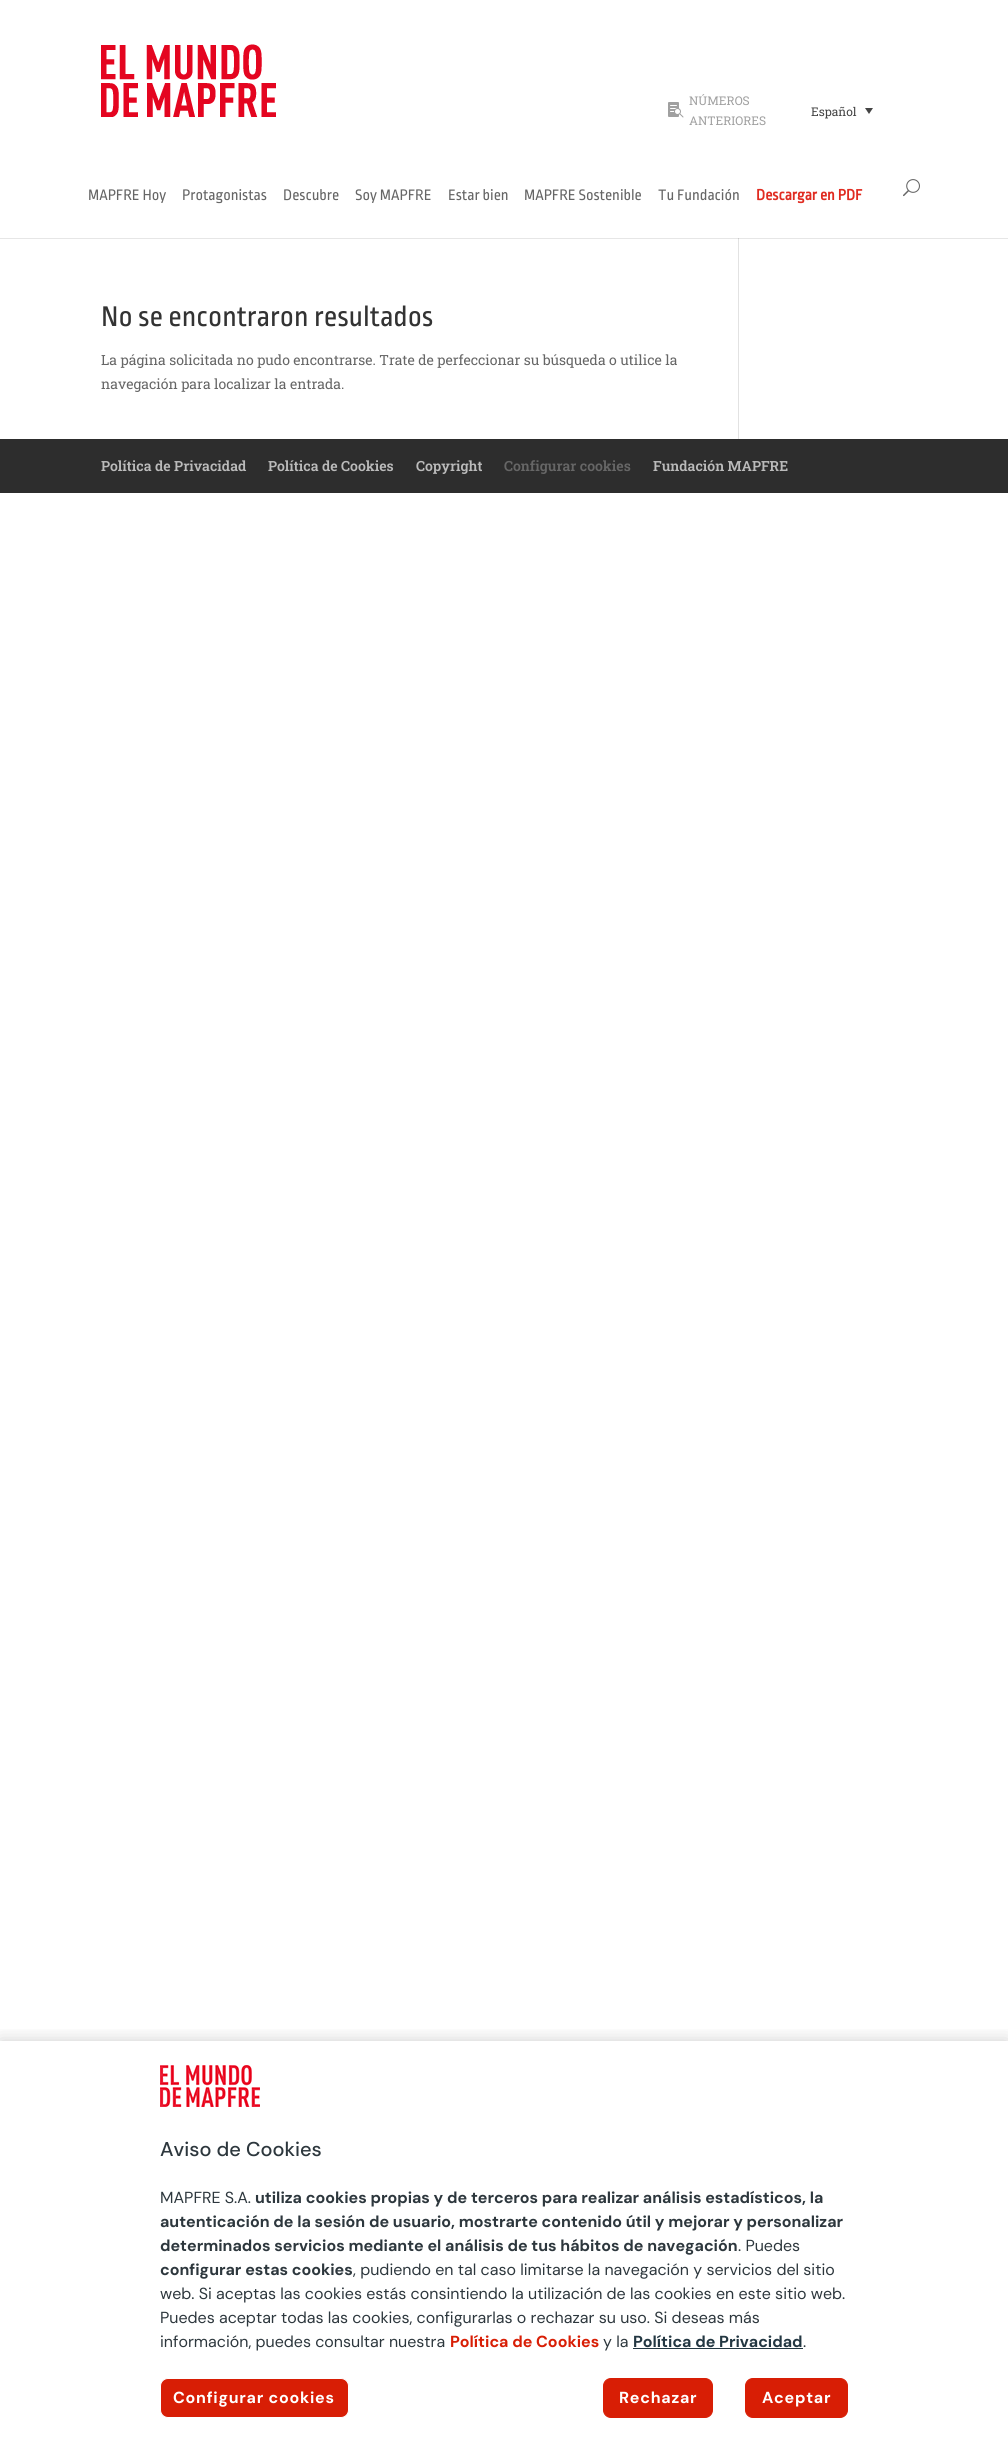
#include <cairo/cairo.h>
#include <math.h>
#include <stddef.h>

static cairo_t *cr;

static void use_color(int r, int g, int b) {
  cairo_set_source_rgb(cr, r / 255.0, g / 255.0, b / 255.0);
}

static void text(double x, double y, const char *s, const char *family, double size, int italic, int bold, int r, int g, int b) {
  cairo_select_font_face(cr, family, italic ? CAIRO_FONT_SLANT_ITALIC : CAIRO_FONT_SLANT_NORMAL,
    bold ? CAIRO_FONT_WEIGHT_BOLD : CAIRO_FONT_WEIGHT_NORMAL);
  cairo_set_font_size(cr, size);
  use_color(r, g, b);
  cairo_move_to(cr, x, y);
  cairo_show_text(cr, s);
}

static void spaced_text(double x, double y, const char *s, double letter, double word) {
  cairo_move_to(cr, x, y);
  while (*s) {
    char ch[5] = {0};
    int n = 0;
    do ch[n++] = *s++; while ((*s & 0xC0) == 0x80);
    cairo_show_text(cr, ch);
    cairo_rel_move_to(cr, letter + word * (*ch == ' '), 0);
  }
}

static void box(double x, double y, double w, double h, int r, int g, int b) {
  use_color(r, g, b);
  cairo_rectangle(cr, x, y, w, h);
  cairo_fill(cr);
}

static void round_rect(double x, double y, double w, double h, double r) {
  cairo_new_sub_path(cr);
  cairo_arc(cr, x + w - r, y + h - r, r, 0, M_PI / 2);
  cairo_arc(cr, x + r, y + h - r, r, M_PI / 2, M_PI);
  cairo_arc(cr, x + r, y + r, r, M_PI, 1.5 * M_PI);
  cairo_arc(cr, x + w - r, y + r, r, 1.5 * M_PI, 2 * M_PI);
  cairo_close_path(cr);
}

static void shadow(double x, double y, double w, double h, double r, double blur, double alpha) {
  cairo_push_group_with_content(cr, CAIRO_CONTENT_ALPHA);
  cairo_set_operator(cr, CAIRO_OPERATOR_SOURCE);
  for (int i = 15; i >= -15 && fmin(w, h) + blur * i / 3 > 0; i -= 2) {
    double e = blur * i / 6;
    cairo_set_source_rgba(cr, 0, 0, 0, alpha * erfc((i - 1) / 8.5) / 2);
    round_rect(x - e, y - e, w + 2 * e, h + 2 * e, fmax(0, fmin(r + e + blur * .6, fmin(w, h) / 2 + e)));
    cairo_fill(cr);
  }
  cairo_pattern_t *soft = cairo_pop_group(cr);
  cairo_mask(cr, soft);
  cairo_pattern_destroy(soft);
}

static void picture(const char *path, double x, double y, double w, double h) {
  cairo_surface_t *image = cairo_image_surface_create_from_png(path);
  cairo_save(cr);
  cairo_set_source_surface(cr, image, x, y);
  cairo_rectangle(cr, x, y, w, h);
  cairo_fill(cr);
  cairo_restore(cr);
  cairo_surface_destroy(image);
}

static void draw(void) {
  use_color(255, 255, 255);
  cairo_paint(cr);
  box(0, 238, 1008, 1, 230, 230, 230);
  picture("img_01.png", 101, 44, 175, 73);
  picture("img_02.png", 668, 102, 16, 16);
  use_color(68, 68, 68);
  cairo_new_path(cr);
  cairo_move_to(cr, 865, 108);
  cairo_line_to(cr, 873, 108);
  cairo_line_to(cr, 869, 114);
  cairo_close_path(cr);
  cairo_fill(cr);
  picture("img_03.png", 903, 179, 17, 18);
  box(738, 238, 1, 201, 226, 226, 226);
  box(738, 238, 1, 1, 203, 203, 203);
  box(0, 439, 1008, 54, 45, 45, 45);
  cairo_save(cr);
  cairo_rectangle(cr, 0, 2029, 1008, 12);
  cairo_clip(cr);
  use_color(0, 0, 0);
  shadow(0, 2041, 1008, 401, 0, 9, 0.2);
  cairo_restore(cr);
  picture("img_04.png", 160, 2065, 100, 42);
  box(633, 2348, 170, 1, 35, 55, 66);
  use_color(216, 30, 5);
  round_rect(160.5, 2378.5, 188, 39, 7.5);
  cairo_fill_preserve(cr);
  use_color(255, 255, 255);
  cairo_set_line_width(cr, 1);
  cairo_stroke(cr);
  use_color(216, 30, 5);
  round_rect(603.5, 2378.5, 109, 39, 7.5);
  cairo_fill_preserve(cr);
  cairo_stroke(cr);
  round_rect(745.5, 2378.5, 102, 39, 7.5);
  cairo_fill_preserve(cr);
  cairo_stroke(cr);
  text(689, 105, "NÚMEROS", "Roboto Slab", 12, 0, 0, 160, 160, 160);
  text(689, 125, "ANTERIORES", "Roboto Slab", 12, 0, 0, 160, 160, 160);
  text(811, 116, "Español", "Roboto Slab", 12, 0, 0, 68, 68, 68);
  text(88, 200, "MAPFRE Hoy", "Ropa Sans", 16, 0, 0, 102, 102, 102);
  text(182, 200, "Protagonistas", "Ropa Sans", 16, 0, 0, 102, 102, 102);
  text(283, 200, "Descubre", "Ropa Sans", 16, 0, 0, 102, 102, 102);
  text(355, 200, "Soy MAPFRE", "Ropa Sans", 16, 0, 0, 102, 102, 102);
  text(448, 200, "Estar bien", "Ropa Sans", 16, 0, 0, 102, 102, 102);
  text(524, 200, "MAPFRE Sostenible", "Ropa Sans", 16, 0, 0, 102, 102, 102);
  text(658, 200, "Tu Fundación", "Ropa Sans", 16, 0, 0, 102, 102, 102);
  text(756, 200, "Descargar en PDF", "Ropa Sans", 16, 0, 1, 224, 43, 32);
  text(101, 326, "No se encontraron resultados", "Ropa Sans", 30, 0, 0, 51, 51, 51);
  text(101, 365, "La página solicitada no pudo encontrarse. Trate de perfeccionar su búsqueda o utilice la", "Roboto Slab", 14, 0, 0, 102, 102, 102);
  text(101, 389, "navegación para localizar la entrada.", "Roboto Slab", 14, 0, 0, 102, 102, 102);
  text(101, 471, "Política de Privacidad", "Roboto Slab SemiBold", 14, 0, 0, 187, 187, 187);
  text(268, 471, "Política de Cookies", "Roboto Slab SemiBold", 14, 0, 0, 187, 187, 187);
  text(416, 471, "Copyright", "Roboto Slab SemiBold", 14, 0, 0, 187, 187, 187);
  text(504, 471, "Configurar cookies", "Roboto Slab SemiBold", 14, 0, 0, 102, 102, 102);
  text(653, 471, "Fundación MAPFRE", "Roboto Slab SemiBold", 14, 0, 0, 187, 187, 187);
  text(160, 2156, "Aviso de Cookies", "DM Sans Medium", 20, 0, 0, 45, 55, 61);
  text(160, 2203, "MAPFRE S.A.", "DM Sans", 16, 0, 0, 45, 55, 61);
  text(255, 2203, "utiliza cookies propias y de terceros para realizar análisis estadísticos, la", "DM Sans", 16, 0, 1, 45, 55, 61);
  text(160, 2227, "autenticación de la sesión de usuario, mostrarte contenido útil y mejorar y personalizar", "DM Sans", 16, 0, 1, 45, 55, 61);
  text(160, 2251, "determinados servicios mediante el análisis de tus hábitos de navegación", "DM Sans", 16, 0, 1, 45, 55, 61);
  text(738, 2251, ". Puedes", "DM Sans", 16, 0, 0, 45, 55, 61);
  text(160, 2275, "configurar estas cookies", "DM Sans", 16, 0, 1, 45, 55, 61);
  text(353, 2275, ", pudiendo en tal caso limitarse la navegación y servicios del sitio", "DM Sans", 16, 0, 0, 45, 55, 61);
  text(160, 2299, "web. Si aceptas las cookies estás consintiendo la utilización de las cookies en este sitio web.", "DM Sans", 16, 0, 0, 45, 55, 61);
  text(160, 2323, "Puedes aceptar todas las cookies, configurarlas o rechazar su uso. Si deseas más", "DM Sans", 16, 0, 0, 45, 55, 61);
  text(160, 2347, "información, puedes consultar nuestra", "DM Sans", 16, 0, 0, 45, 55, 61);
  text(450, 2347, "Política de Cookies", "DM Sans", 16, 0, 1, 216, 30, 5);
  text(603, 2347, "y la", "DM Sans", 16, 0, 0, 45, 55, 61);
  text(633, 2347, "Política de Privacidad", "DM Sans", 16, 0, 1, 35, 55, 66);
  text(803, 2347, ".", "DM Sans", 16, 0, 0, 45, 55, 61);
  cairo_select_font_face(cr, "DM Sans", CAIRO_FONT_SLANT_NORMAL, CAIRO_FONT_WEIGHT_BOLD);
  use_color(255, 255, 255);
  spaced_text(173, 2403, "Configurar cookies", 0.75, 0);
  spaced_text(619, 2403, "Rechazar", 0.75, 0);
  spaced_text(762, 2403, "Aceptar", 0.75, 0);
}

int main(void) {
  cairo_surface_t *surface = cairo_image_surface_create(CAIRO_FORMAT_RGB24, 1008, 2442);
  cr = cairo_create(surface);
  cairo_font_options_t *options = cairo_font_options_create();
  cairo_font_options_set_hint_metrics(options, CAIRO_HINT_METRICS_OFF);
  cairo_font_options_set_hint_style(options, CAIRO_HINT_STYLE_NONE);
  cairo_set_font_options(cr, options);
  cairo_set_miter_limit(cr, 4);
  draw();
  cairo_surface_write_to_png(surface, "out.png");
  cairo_font_options_destroy(options);
  cairo_destroy(cr);
  cairo_surface_destroy(surface);
  return 0;
}
